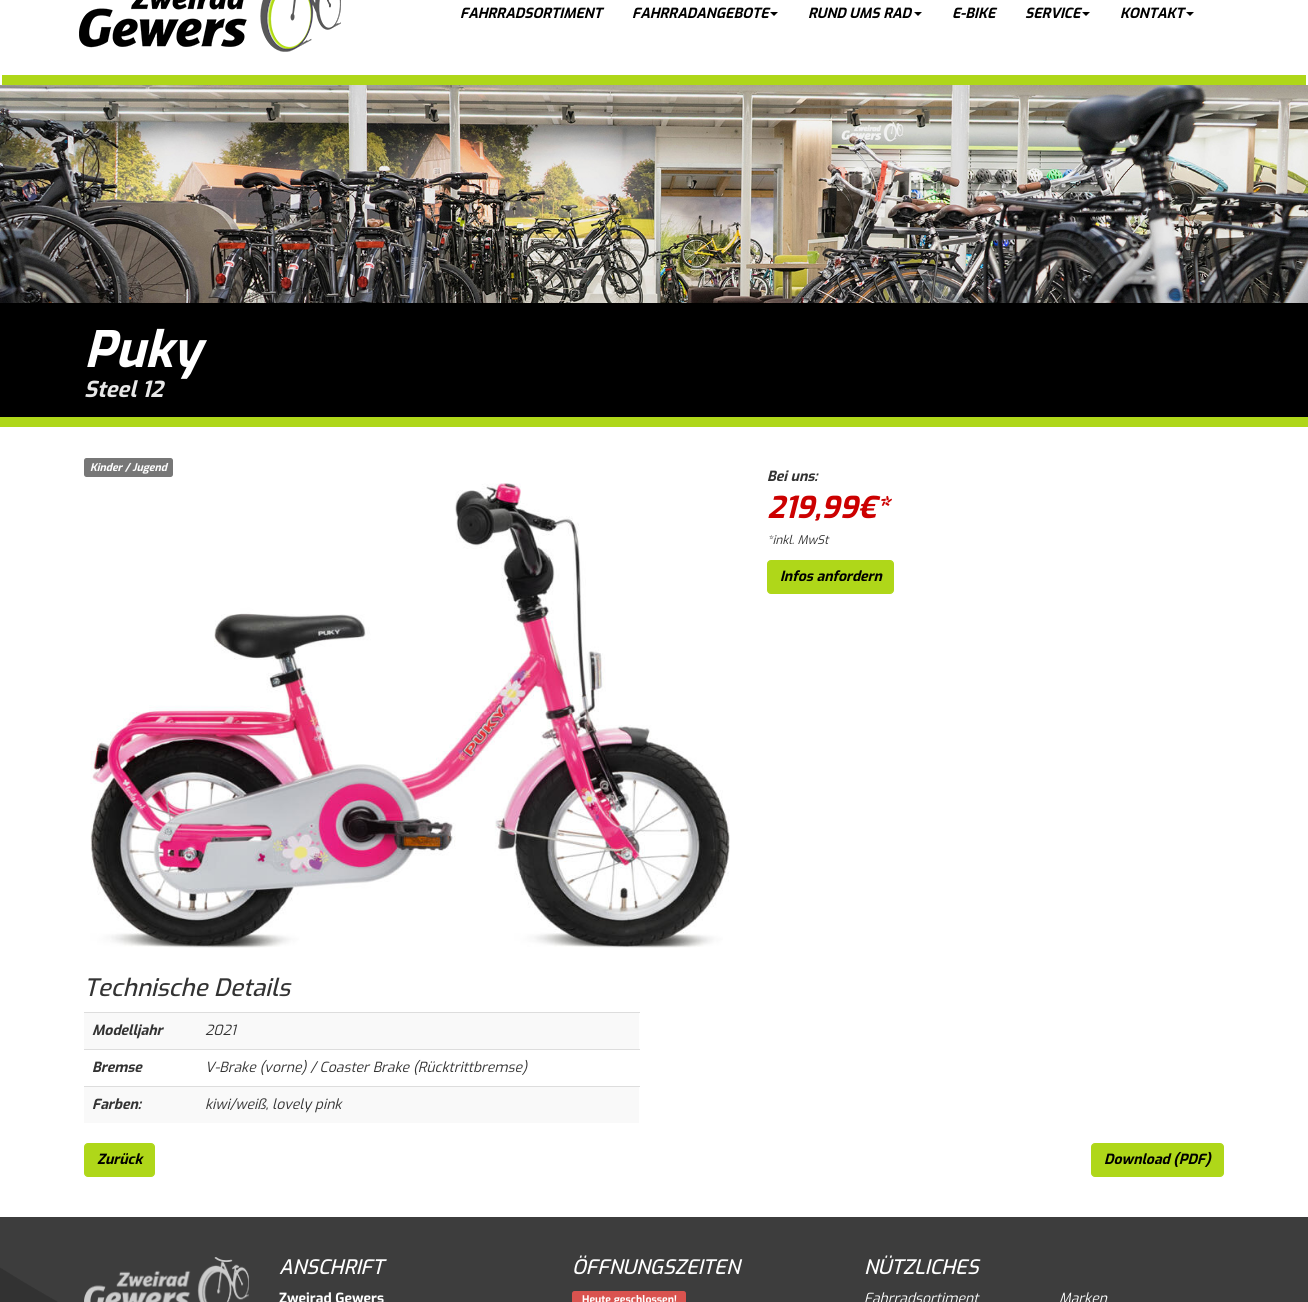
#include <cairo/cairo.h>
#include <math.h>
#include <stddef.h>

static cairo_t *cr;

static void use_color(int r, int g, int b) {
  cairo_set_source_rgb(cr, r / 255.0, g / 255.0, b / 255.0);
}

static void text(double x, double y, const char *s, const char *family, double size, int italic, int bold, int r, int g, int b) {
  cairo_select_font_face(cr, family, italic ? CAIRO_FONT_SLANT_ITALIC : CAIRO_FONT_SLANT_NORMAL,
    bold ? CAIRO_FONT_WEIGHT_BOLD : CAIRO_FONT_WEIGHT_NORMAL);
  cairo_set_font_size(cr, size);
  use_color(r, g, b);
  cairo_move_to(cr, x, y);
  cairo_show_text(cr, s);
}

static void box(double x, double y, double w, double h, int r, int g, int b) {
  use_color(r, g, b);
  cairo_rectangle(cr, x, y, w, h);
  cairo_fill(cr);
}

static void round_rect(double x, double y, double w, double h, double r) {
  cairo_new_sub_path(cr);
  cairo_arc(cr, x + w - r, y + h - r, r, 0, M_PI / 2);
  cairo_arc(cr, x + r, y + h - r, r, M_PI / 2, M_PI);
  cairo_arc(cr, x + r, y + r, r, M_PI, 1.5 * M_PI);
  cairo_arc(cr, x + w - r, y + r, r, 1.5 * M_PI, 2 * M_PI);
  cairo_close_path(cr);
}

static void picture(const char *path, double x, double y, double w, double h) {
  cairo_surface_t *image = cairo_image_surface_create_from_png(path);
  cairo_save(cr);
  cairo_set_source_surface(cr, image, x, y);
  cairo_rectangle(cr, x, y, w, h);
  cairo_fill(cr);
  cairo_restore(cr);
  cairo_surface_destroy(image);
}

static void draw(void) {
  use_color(255, 255, 255);
  cairo_paint(cr);
  box(0, 1217, 1308, 85, 61, 61, 61);
  box(2, 75, 1304, 10, 175, 215, 25);
  picture("img_01.png", 79, 0, 262, 52);
  use_color(0, 0, 0);
  cairo_new_path(cr);
  cairo_move_to(cr, 770, 12);
  cairo_line_to(cr, 778, 12);
  cairo_line_to(cr, 774, 16);
  cairo_close_path(cr);
  cairo_fill(cr);
  cairo_new_path(cr);
  cairo_move_to(cr, 914, 12);
  cairo_line_to(cr, 922, 12);
  cairo_line_to(cr, 918, 16);
  cairo_close_path(cr);
  cairo_fill(cr);
  cairo_new_path(cr);
  cairo_move_to(cr, 1082, 12);
  cairo_line_to(cr, 1090, 12);
  cairo_line_to(cr, 1086, 16);
  cairo_close_path(cr);
  cairo_fill(cr);
  cairo_new_path(cr);
  cairo_move_to(cr, 1186, 12);
  cairo_line_to(cr, 1194, 12);
  cairo_line_to(cr, 1190, 16);
  cairo_close_path(cr);
  cairo_fill(cr);
  picture("img_02.png", 0, 85, 1308, 218);
  box(0, 303, 1308, 114, 0, 0, 0);
  box(0, 417, 1308, 10, 175, 215, 25);
  use_color(119, 119, 119);
  round_rect(84, 458, 89, 19, 2.5);
  cairo_fill(cr);
  picture("img_03.png", 90, 483, 640, 465);
  use_color(175, 215, 25);
  round_rect(767.5, 560.5, 126, 33, 3.5);
  cairo_fill_preserve(cr);
  cairo_set_line_width(cr, 1);
  cairo_stroke(cr);
  box(84, 1013, 555, 36, 249, 249, 249);
  box(84, 1012, 556, 1, 221, 221, 221);
  box(84, 1049, 556, 1, 221, 221, 221);
  box(84, 1087, 555, 36, 249, 249, 249);
  box(84, 1086, 556, 1, 221, 221, 221);
  use_color(175, 215, 25);
  round_rect(84.5, 1143.5, 70, 33, 3.5);
  cairo_fill_preserve(cr);
  cairo_stroke(cr);
  round_rect(1091.5, 1143.5, 132, 33, 3.5);
  cairo_fill_preserve(cr);
  cairo_stroke(cr);
  picture("img_04.png", 0, 1267, 58, 35);
  picture("img_05.png", 84, 1257, 165, 45);
  use_color(217, 83, 79);
  round_rect(572, 1291, 114, 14, 2.5);
  cairo_fill(cr);
  text(460, 18, "FAHRRADSORTIMENT", "Exo", 14, 1, 1, 0, 0, 0);
  text(632, 18, "FAHRRADANGEBOTE", "Exo", 14, 1, 1, 0, 0, 0);
  text(808, 18, "RUND UMS RAD", "Exo", 14, 1, 1, 0, 0, 0);
  text(952, 18, "E-BIKE", "Exo", 14, 1, 1, 0, 0, 0);
  text(1025, 18, "SERVICE", "Exo", 14, 1, 1, 0, 0, 0);
  text(1120, 18, "KONTAKT", "Exo", 14, 1, 1, 0, 0, 0);
  text(84, 367, "Puky", "Exo", 50, 1, 1, 255, 255, 255);
  text(84, 397, "Steel 12", "Exo", 22, 1, 1, 232, 232, 232);
  text(90, 471, "Kinder / Jugend", "Exo", 10.5, 1, 1, 255, 255, 255);
  text(767, 481, "Bei uns:", "Exo", 14, 1, 1, 51, 51, 51);
  text(767, 518, "219,99€*", "Exo", 30, 1, 1, 204, 0, 0);
  text(767, 544, "*inkl. MwSt", "Exo", 12, 1, 0, 51, 51, 51);
  text(780, 581, "Infos anfordern", "Exo", 14, 1, 1, 0, 0, 0);
  text(84, 996, "Technische Details", "Exo Medium", 24, 1, 0, 51, 51, 51);
  text(92, 1035, "Modelljahr", "Exo", 14, 1, 1, 51, 51, 51);
  text(205, 1035, "2021", "Exo", 14, 1, 0, 51, 51, 51);
  text(92, 1072, "Bremse", "Exo", 14, 1, 1, 51, 51, 51);
  text(205, 1072, "V-Brake (vorne) / Coaster Brake (Rücktrittbremse)", "Exo", 14, 1, 0, 51, 51, 51);
  text(92, 1109, "Farben:", "Exo", 14, 1, 1, 51, 51, 51);
  text(205, 1109, "kiwi/weiß, lovely pink", "Exo", 14, 1, 0, 51, 51, 51);
  text(97, 1164, "Zurück", "Exo", 14, 1, 1, 0, 0, 0);
  text(1104, 1164, "Download (PDF)", "Exo", 14, 1, 1, 0, 0, 0);
  text(279, 1274, "ANSCHRIFT", "Exo Medium", 20, 1, 0, 255, 255, 255);
  text(279, 1303, "Zweirad Gewers", "Exo", 14, 0, 1, 255, 255, 255);
  text(572, 1274, "ÖFFNUNGSZEITEN", "Exo Medium", 20, 1, 0, 255, 255, 255);
  text(582, 1303, "Heute geschlossen!", "Exo", 10.5, 0, 1, 255, 255, 255);
  text(864, 1274, "NÜTZLICHES", "Exo Medium", 20, 1, 0, 255, 255, 255);
  text(864, 1303, "Fahrradsortiment", "Exo", 14, 1, 0, 255, 255, 255);
  text(1059, 1303, "Marken", "Exo", 14, 1, 0, 255, 255, 255);
}

int main(void) {
  cairo_surface_t *surface = cairo_image_surface_create(CAIRO_FORMAT_RGB24, 1308, 1302);
  cr = cairo_create(surface);
  cairo_font_options_t *options = cairo_font_options_create();
  cairo_font_options_set_hint_metrics(options, CAIRO_HINT_METRICS_OFF);
  cairo_font_options_set_hint_style(options, CAIRO_HINT_STYLE_NONE);
  cairo_set_font_options(cr, options);
  cairo_set_miter_limit(cr, 4);
  draw();
  cairo_surface_write_to_png(surface, "out.png");
  cairo_font_options_destroy(options);
  cairo_destroy(cr);
  cairo_surface_destroy(surface);
  return 0;
}
